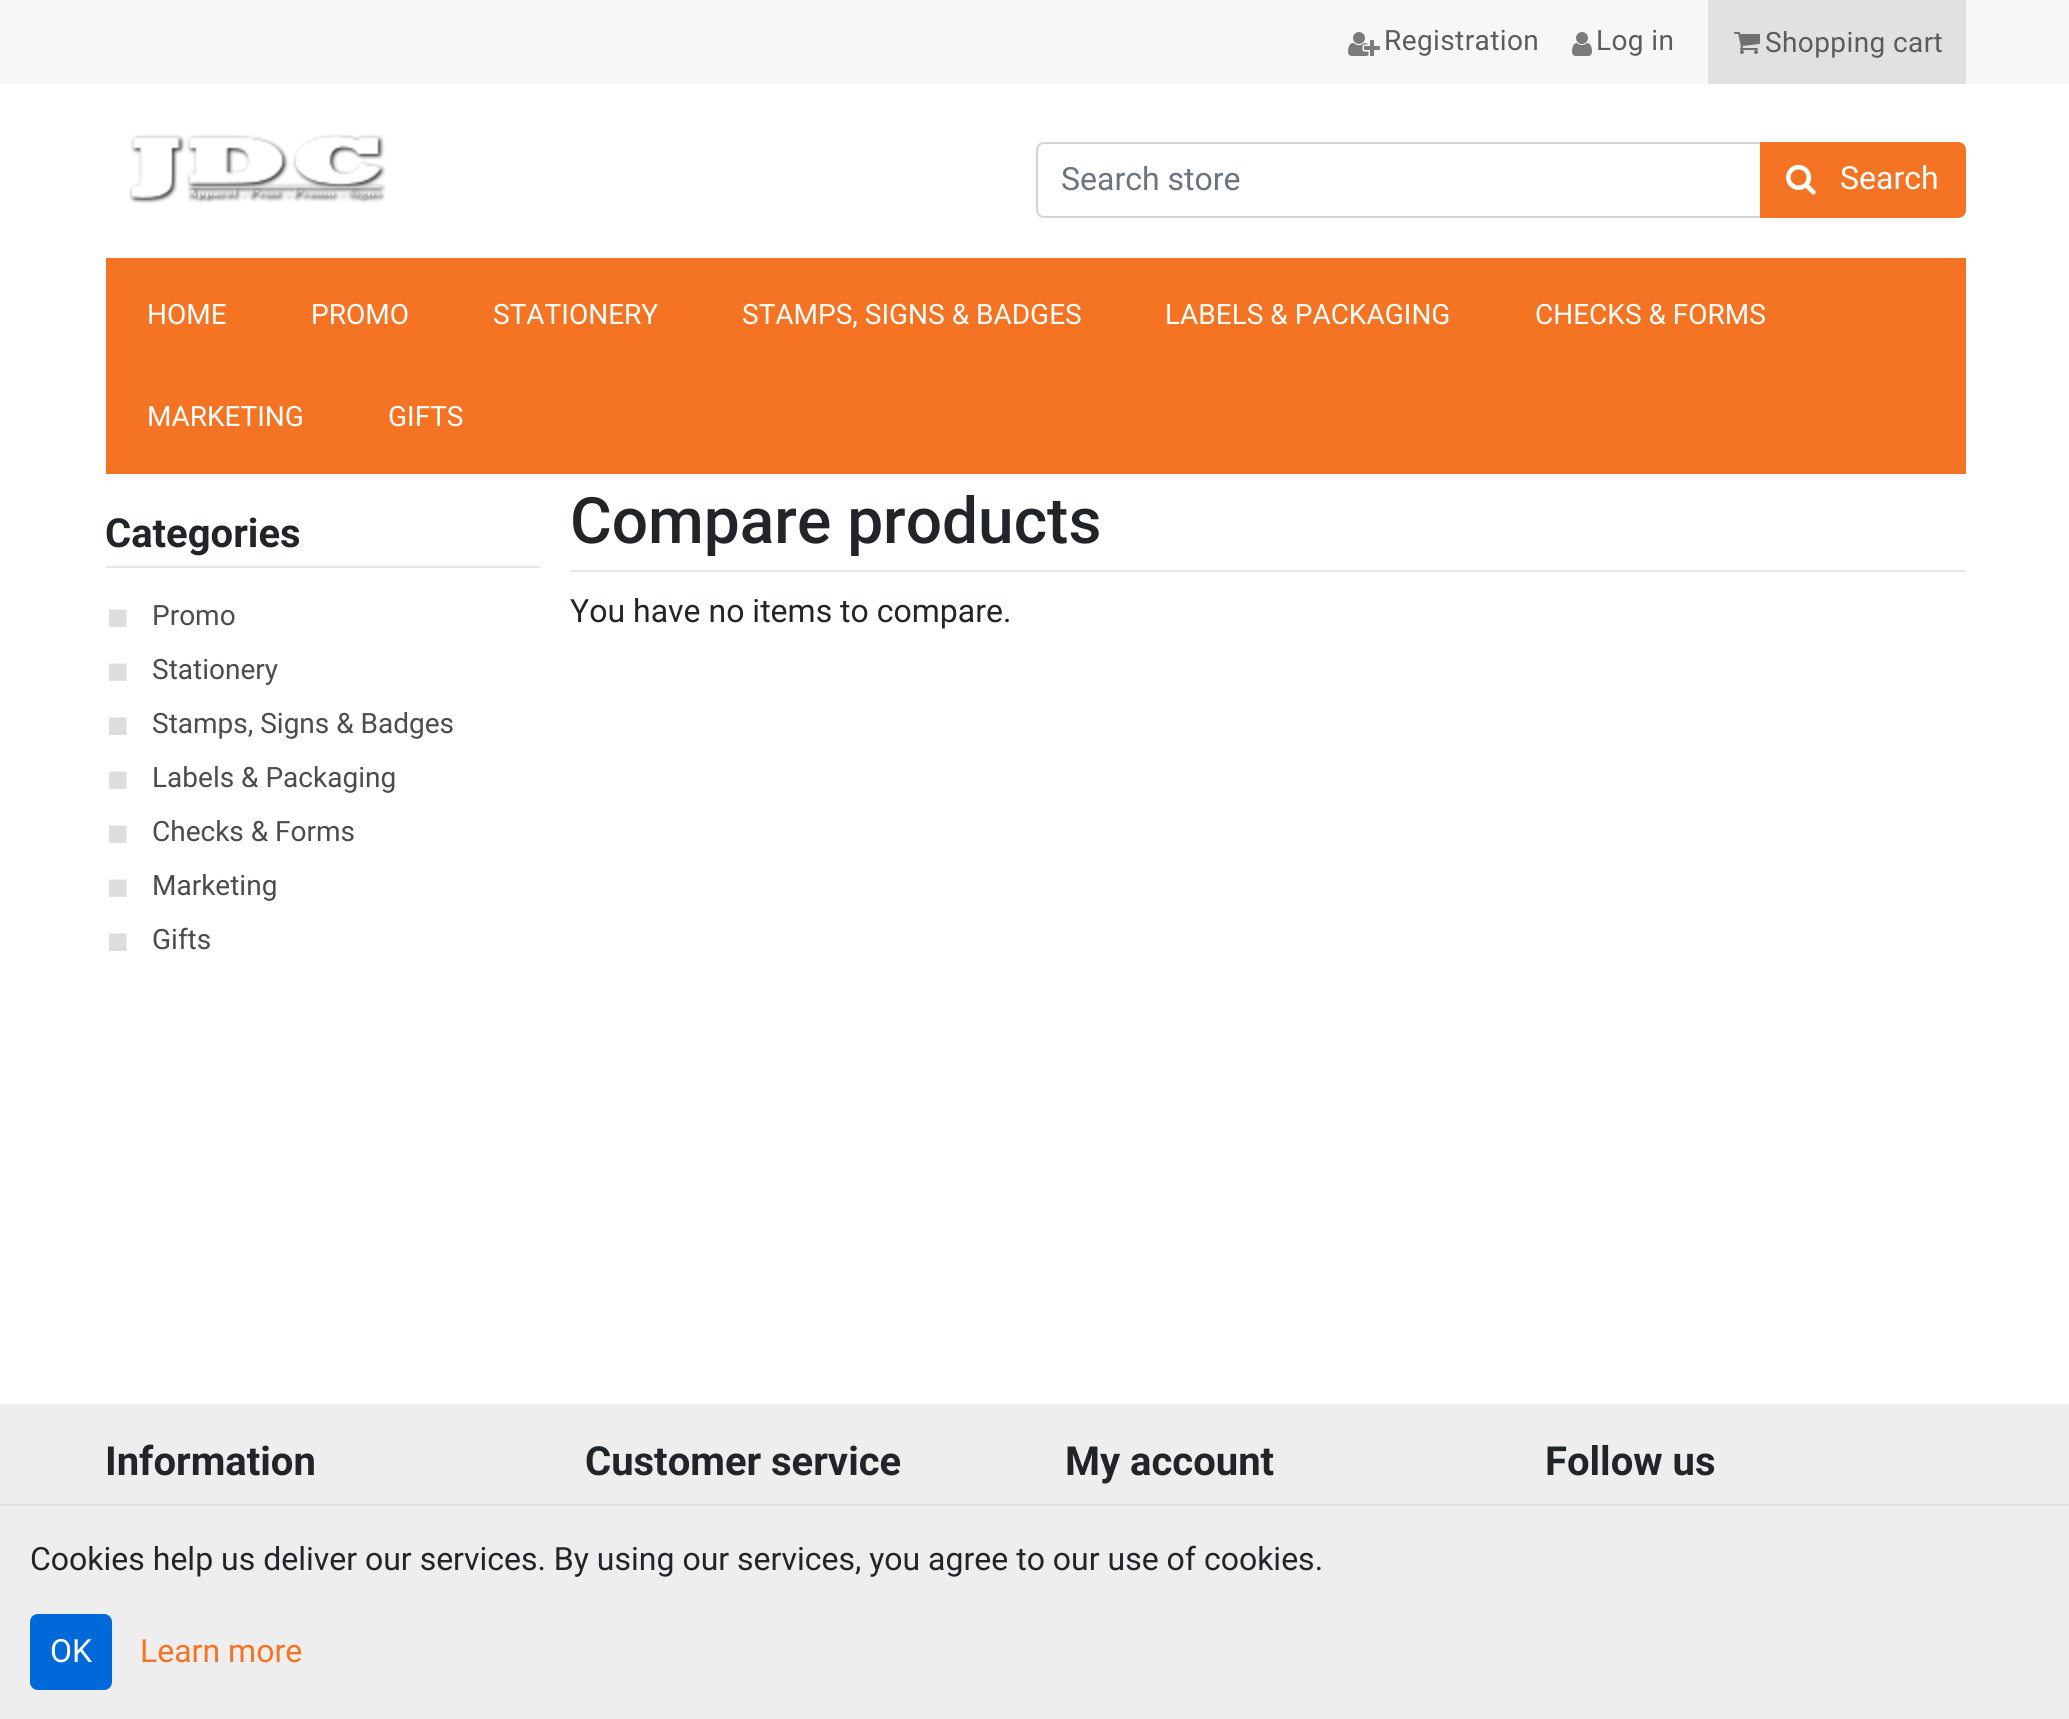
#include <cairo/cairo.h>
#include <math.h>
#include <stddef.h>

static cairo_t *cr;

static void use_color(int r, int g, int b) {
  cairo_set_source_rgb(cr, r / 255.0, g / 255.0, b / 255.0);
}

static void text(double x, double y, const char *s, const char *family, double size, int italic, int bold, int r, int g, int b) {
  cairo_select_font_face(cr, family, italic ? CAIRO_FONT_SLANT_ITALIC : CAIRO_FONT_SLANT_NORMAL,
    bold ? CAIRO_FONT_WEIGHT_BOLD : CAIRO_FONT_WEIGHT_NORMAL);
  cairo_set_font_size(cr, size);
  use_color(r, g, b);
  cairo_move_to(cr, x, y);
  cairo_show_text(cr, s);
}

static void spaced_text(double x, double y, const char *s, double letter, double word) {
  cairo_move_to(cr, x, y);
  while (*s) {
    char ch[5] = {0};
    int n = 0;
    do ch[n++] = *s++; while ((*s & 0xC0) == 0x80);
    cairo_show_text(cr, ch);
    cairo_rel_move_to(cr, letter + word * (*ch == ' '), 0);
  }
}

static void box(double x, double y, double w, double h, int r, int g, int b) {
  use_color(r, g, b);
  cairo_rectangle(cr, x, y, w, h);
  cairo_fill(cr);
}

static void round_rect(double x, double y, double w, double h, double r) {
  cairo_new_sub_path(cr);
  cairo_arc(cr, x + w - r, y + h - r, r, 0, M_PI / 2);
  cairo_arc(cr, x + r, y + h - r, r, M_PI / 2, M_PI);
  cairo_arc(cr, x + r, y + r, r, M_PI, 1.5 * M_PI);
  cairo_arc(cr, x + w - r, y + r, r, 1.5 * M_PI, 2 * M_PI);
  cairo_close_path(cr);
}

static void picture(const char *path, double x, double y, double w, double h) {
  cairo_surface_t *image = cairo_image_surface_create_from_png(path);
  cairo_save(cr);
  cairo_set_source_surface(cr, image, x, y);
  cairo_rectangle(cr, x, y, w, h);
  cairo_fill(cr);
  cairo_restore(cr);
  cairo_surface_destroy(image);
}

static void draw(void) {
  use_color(255, 255, 255);
  cairo_paint(cr);
  box(0, 0, 2069, 84, 247, 247, 247);
  picture("img_01.png", 1348, 32, 32, 24);
  picture("img_02.png", 1572, 32, 20, 24);
  box(1708, 0, 258, 84, 223, 225, 226);
  picture("img_03.png", 1734, 32, 26, 22);
  picture("img_04.png", 129, 134, 257, 70);
  cairo_new_path(cr);
  cairo_move_to(cr, 1044, 143);
  cairo_line_to(cr, 1761, 143);
  cairo_line_to(cr, 1761, 217);
  cairo_line_to(cr, 1044, 217);
  cairo_curve_to(cr, 1040, 217, 1037, 214, 1037, 210);
  cairo_line_to(cr, 1037, 150);
  cairo_curve_to(cr, 1037, 146, 1040, 143, 1044, 143);
  cairo_close_path(cr);
  use_color(206, 212, 218);
  cairo_stroke(cr);
  use_color(244, 116, 35);
  cairo_new_path(cr);
  cairo_move_to(cr, 1761, 143);
  cairo_line_to(cr, 1958, 143);
  cairo_curve_to(cr, 1962, 143, 1965, 146, 1965, 150);
  cairo_line_to(cr, 1965, 210);
  cairo_curve_to(cr, 1965, 214, 1962, 217, 1958, 217);
  cairo_line_to(cr, 1761, 217);
  cairo_close_path(cr);
  cairo_fill_preserve(cr);
  cairo_stroke(cr);
  picture("img_05.png", 1786, 164, 30, 31);
  box(106, 258, 1860, 216, 244, 116, 35);
  box(106, 566, 434, 2, 230, 230, 230);
  box(570, 570, 1396, 2, 230, 230, 230);
  box(0, 1404, 2069, 100, 238, 238, 238);
  box(0, 1506, 2069, 213, 238, 238, 238);
  box(0, 1504, 2069, 2, 223, 225, 226);
  use_color(0, 105, 217);
  round_rect(30, 1614, 82, 76, 8);
  cairo_fill(cr);
  cairo_select_font_face(cr, "Roboto", CAIRO_FONT_SLANT_NORMAL, CAIRO_FONT_WEIGHT_NORMAL);
  cairo_set_font_size(cr, 28);
  use_color(92, 92, 92);
  spaced_text(1384, 50, "Registration", 0.4, 0);
  spaced_text(1596, 50, "Log in", 0.4, 0);
  spaced_text(1765, 52, "Shopping cart", 0.4, 0);
  text(1061, 190, "Search store", "Roboto", 32, 0, 0, 108, 117, 125);
  text(1840, 189, "Search", "Roboto", 32, 0, 0, 255, 255, 255);
  text(147, 324, "HOME", "Roboto", 28, 0, 0, 255, 255, 255);
  text(311, 324, "PROMO", "Roboto", 28, 0, 0, 255, 255, 255);
  text(493, 324, "STATIONERY", "Roboto", 28, 0, 0, 255, 255, 255);
  text(742, 324, "STAMPS, SIGNS & BADGES", "Roboto", 28, 0, 0, 255, 255, 255);
  text(1165, 324, "LABELS & PACKAGING", "Roboto", 28, 0, 0, 255, 255, 255);
  text(1535, 324, "CHECKS & FORMS", "Roboto", 28, 0, 0, 255, 255, 255);
  text(147, 426, "MARKETING", "Roboto", 28, 0, 0, 255, 255, 255);
  text(388, 426, "GIFTS", "Roboto", 28, 0, 0, 255, 255, 255);
  text(105, 547, "Categories", "Roboto", 40, 0, 1, 33, 37, 41);
  text(107, 629, "■", "Liberation Sans", 36, 0, 0, 221, 221, 221);
  text(152, 625, "Promo", "Roboto", 28, 0, 0, 76, 76, 77);
  text(107, 683, "■", "Liberation Sans", 36, 0, 0, 221, 221, 221);
  text(152, 679, "Stationery", "Roboto", 28, 0, 0, 76, 76, 77);
  text(107, 737, "■", "Liberation Sans", 36, 0, 0, 221, 221, 221);
  text(152, 733, "Stamps, Signs & Badges", "Roboto", 28, 0, 0, 76, 76, 77);
  text(107, 791, "■", "Liberation Sans", 36, 0, 0, 221, 221, 221);
  text(152, 787, "Labels & Packaging", "Roboto", 28, 0, 0, 76, 76, 77);
  text(107, 845, "■", "Liberation Sans", 36, 0, 0, 221, 221, 221);
  text(152, 841, "Checks & Forms", "Roboto", 28, 0, 0, 76, 76, 77);
  text(107, 899, "■", "Liberation Sans", 36, 0, 0, 221, 221, 221);
  text(152, 895, "Marketing", "Roboto", 28, 0, 0, 76, 76, 77);
  text(107, 953, "■", "Liberation Sans", 36, 0, 0, 221, 221, 221);
  text(152, 949, "Gifts", "Roboto", 28, 0, 0, 76, 76, 77);
  text(570, 543, "Compare products", "Roboto Medium", 64, 0, 0, 33, 37, 41);
  text(570, 622, "You have no items to compare.", "Roboto", 32, 0, 0, 33, 37, 41);
  text(105, 1475, "Information", "Roboto", 40, 0, 1, 33, 37, 41);
  text(585, 1475, "Customer service", "Roboto", 40, 0, 1, 33, 37, 41);
  text(1065, 1475, "My account", "Roboto", 40, 0, 1, 33, 37, 41);
  text(1545, 1475, "Follow us", "Roboto", 40, 0, 1, 33, 37, 41);
  text(30, 1570, "Cookies help us deliver our services. By using our services, you agree to our use of cookies.", "Roboto", 32, 0, 0, 33, 37, 41);
  text(50, 1662, "OK", "Roboto", 32, 0, 0, 255, 255, 255);
  text(140, 1662, "Learn more", "Roboto", 32, 0, 0, 244, 116, 35);
}

int main(void) {
  cairo_surface_t *surface = cairo_image_surface_create(CAIRO_FORMAT_RGB24, 2069, 1719);
  cr = cairo_create(surface);
  cairo_font_options_t *options = cairo_font_options_create();
  cairo_font_options_set_hint_metrics(options, CAIRO_HINT_METRICS_OFF);
  cairo_font_options_set_hint_style(options, CAIRO_HINT_STYLE_NONE);
  cairo_set_font_options(cr, options);
  cairo_set_miter_limit(cr, 4);
  draw();
  cairo_surface_write_to_png(surface, "out.png");
  cairo_font_options_destroy(options);
  cairo_destroy(cr);
  cairo_surface_destroy(surface);
  return 0;
}
